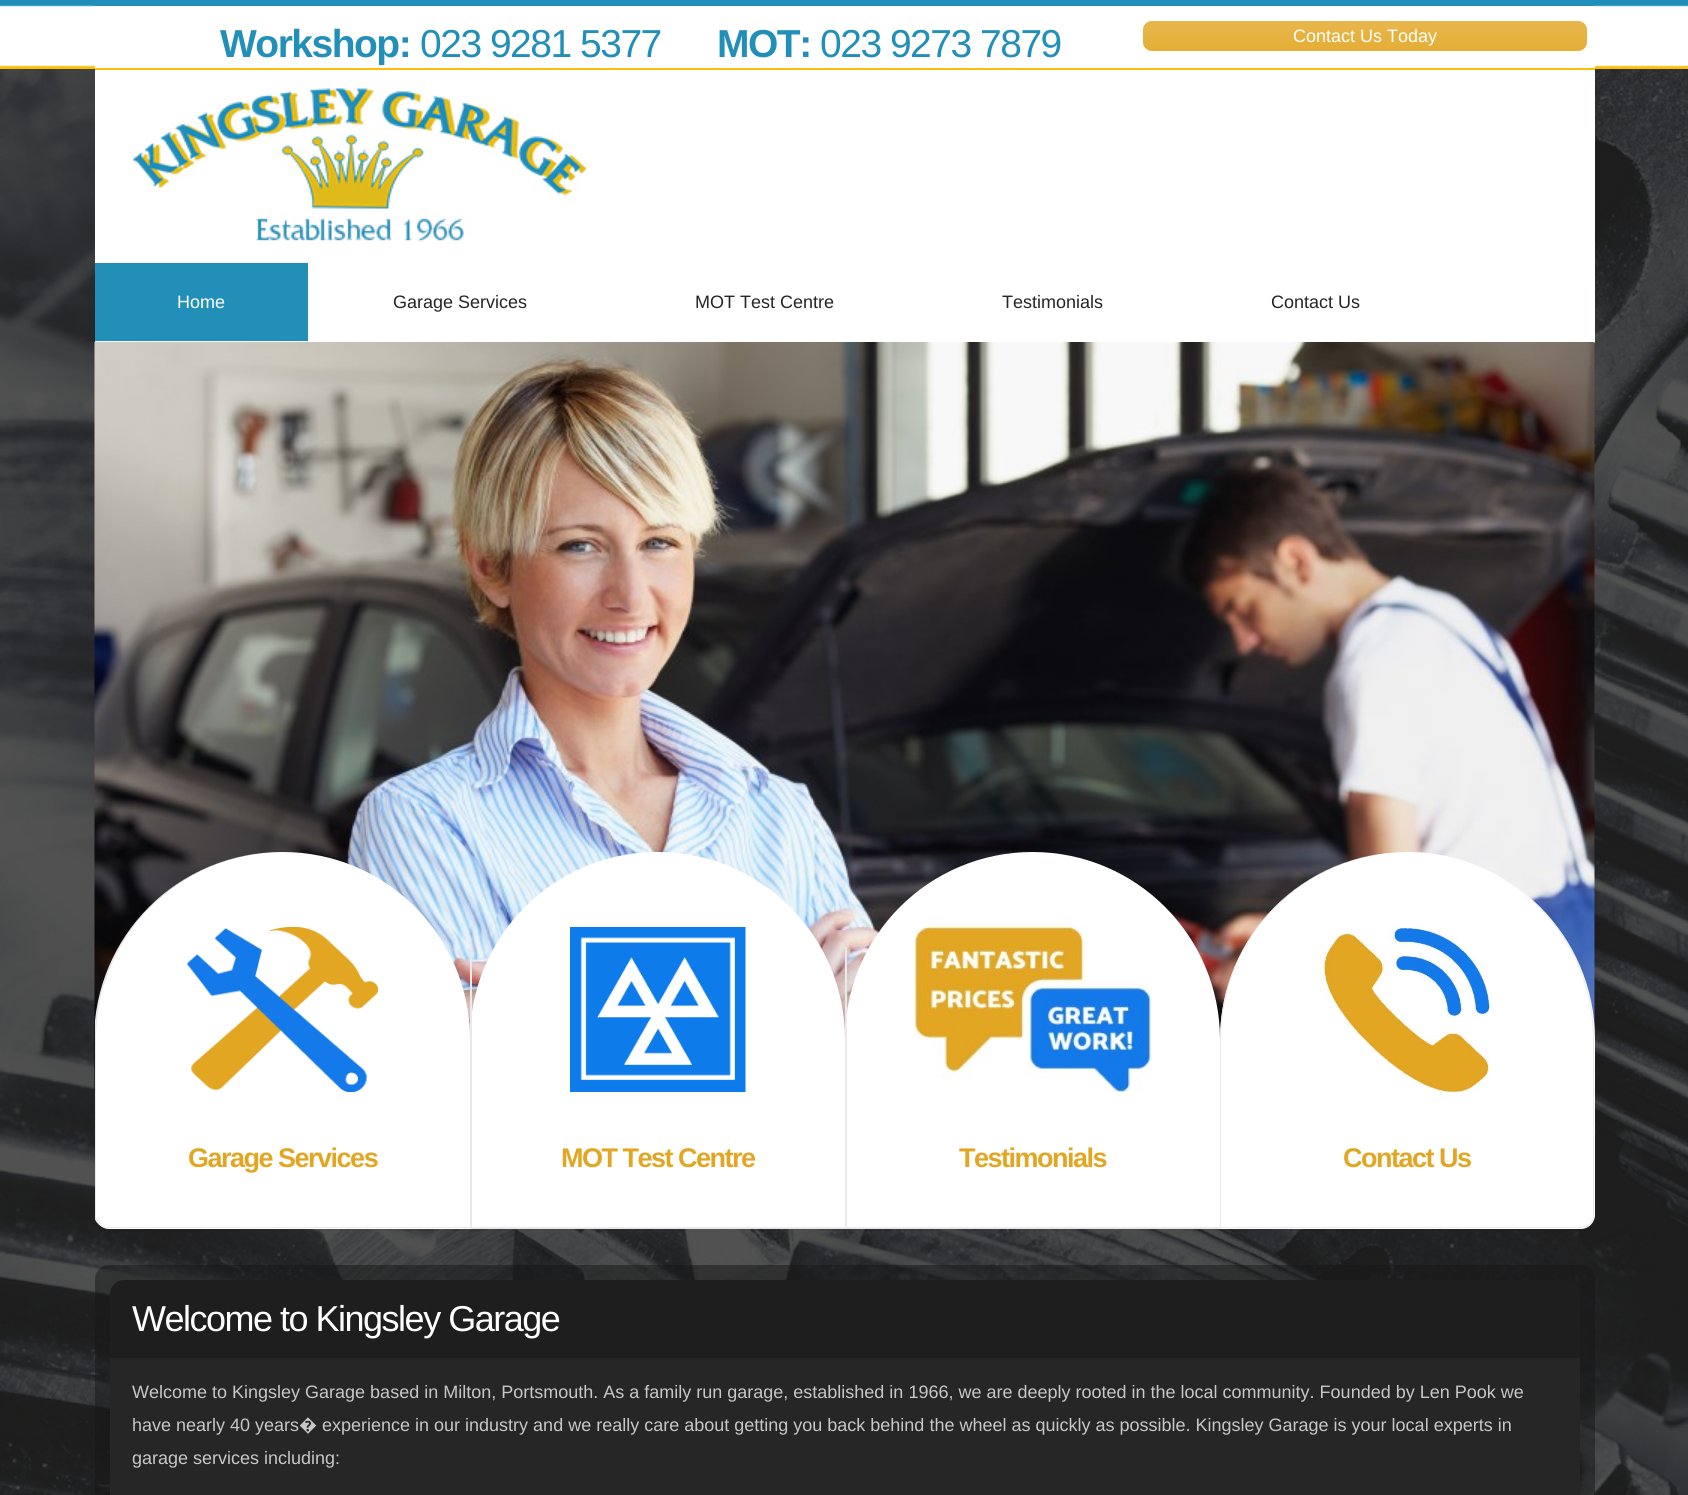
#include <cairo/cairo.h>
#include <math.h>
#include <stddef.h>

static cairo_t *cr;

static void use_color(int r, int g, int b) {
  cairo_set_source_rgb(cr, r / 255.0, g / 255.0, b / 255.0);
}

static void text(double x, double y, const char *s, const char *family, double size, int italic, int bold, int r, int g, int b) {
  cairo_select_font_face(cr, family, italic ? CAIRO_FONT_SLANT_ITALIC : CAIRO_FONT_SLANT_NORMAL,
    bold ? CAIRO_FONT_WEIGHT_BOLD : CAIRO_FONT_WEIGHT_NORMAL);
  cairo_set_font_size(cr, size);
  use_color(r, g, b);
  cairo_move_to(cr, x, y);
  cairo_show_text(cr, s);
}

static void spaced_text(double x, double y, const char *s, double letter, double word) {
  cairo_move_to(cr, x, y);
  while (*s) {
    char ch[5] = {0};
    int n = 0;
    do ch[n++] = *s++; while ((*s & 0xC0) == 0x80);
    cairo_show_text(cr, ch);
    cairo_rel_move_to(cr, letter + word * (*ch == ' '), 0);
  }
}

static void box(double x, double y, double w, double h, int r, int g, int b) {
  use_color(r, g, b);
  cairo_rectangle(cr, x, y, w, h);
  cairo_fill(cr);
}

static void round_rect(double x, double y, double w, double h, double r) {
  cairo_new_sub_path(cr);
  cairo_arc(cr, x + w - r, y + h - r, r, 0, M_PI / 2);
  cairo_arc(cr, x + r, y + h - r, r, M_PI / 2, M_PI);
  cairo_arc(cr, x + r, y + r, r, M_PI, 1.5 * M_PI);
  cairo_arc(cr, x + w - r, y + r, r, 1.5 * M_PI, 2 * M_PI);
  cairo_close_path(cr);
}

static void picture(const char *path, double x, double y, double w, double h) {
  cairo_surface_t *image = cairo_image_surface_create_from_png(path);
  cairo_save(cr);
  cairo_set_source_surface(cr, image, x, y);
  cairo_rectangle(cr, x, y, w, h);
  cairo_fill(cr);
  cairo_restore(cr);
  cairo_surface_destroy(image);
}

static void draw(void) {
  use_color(255, 255, 255);
  cairo_paint(cr);
  picture("img_01.png", 0, 69, 1688, 1426);
  picture("img_02.png", 0, 0, 1688, 69);
  box(95, 6, 1500, 257, 255, 255, 255);
  picture("img_03.png", 133, 86, 454, 156);
  box(95, 5, 1500, 1, 34, 143, 185);
  box(95, 68, 1500, 2, 251, 192, 4);
  use_color(226, 166, 34);
  round_rect(1143, 21, 444, 30, 9);
  cairo_fill(cr);
  picture("img_04.png", 1143, 21, 444, 30);
  box(308, 263, 1287, 78, 255, 255, 255);
  box(95, 341, 1500, 2, 255, 255, 255);
  box(95, 263, 213, 78, 34, 143, 185);
  picture("img_05.png", 94, 342, 1501, 750);
  use_color(255, 255, 255);
  cairo_new_path(cr);
  cairo_move_to(cr, 282.5, 852);
  cairo_curve_to(cr, 386, 852, 470, 936, 470, 1039.5);
  cairo_line_to(cr, 470, 1229);
  cairo_line_to(cr, 109, 1229);
  cairo_curve_to(cr, 101.5, 1229, 95, 1222.5, 95, 1215);
  cairo_line_to(cr, 95, 1039.5);
  cairo_curve_to(cr, 95, 936, 179, 852, 282.5, 852);
  cairo_close_path(cr);
  cairo_fill(cr);
  cairo_save(cr);
  cairo_rectangle(cr, 95, 852, 1500, 413);
  cairo_clip(cr);
  use_color(233, 233, 233);
  cairo_set_fill_rule(cr, CAIRO_FILL_RULE_EVEN_ODD);
  cairo_new_path(cr);
  cairo_move_to(cr, 282, 852);
  cairo_curve_to(cr, 386, 852, 470, 936, 470, 1040);
  cairo_line_to(cr, 470, 1228);
  cairo_line_to(cr, 108, 1228);
  cairo_curve_to(cr, 101, 1228, 94, 1222, 94, 1215);
  cairo_line_to(cr, 94, 1040);
  cairo_curve_to(cr, 94, 936, 178, 852, 282, 852);
  cairo_close_path(cr);
  cairo_move_to(cr, 282, 852);
  cairo_curve_to(cr, 386, 852, 470, 936, 470, 1040);
  cairo_line_to(cr, 470, 1227);
  cairo_line_to(cr, 108, 1227);
  cairo_curve_to(cr, 101, 1227, 96, 1222, 96, 1215);
  cairo_line_to(cr, 96, 1040);
  cairo_curve_to(cr, 96, 936, 179, 852, 282, 852);
  cairo_close_path(cr);
  cairo_fill(cr);
  cairo_restore(cr);
  picture("img_06.png", 187, 927, 191, 165);
  cairo_new_path(cr);
  cairo_move_to(cr, 657.5, 852);
  cairo_curve_to(cr, 761, 852, 845, 936, 845, 1039.5);
  cairo_line_to(cr, 845, 1229);
  cairo_line_to(cr, 470, 1229);
  cairo_line_to(cr, 470, 1039.5);
  cairo_curve_to(cr, 470, 936, 554, 852, 657.5, 852);
  cairo_close_path(cr);
  cairo_fill(cr);
  box(470, 1227, 375, 2, 233, 233, 233);
  box(470, 947, 2, 282, 233, 233, 233);
  picture("img_07.png", 570, 927, 176, 165);
  use_color(255, 255, 255);
  cairo_new_path(cr);
  cairo_move_to(cr, 1032.5, 852);
  cairo_curve_to(cr, 1136, 852, 1220, 936, 1220, 1039.5);
  cairo_line_to(cr, 1220, 1229);
  cairo_line_to(cr, 845, 1229);
  cairo_line_to(cr, 845, 1039.5);
  cairo_curve_to(cr, 845, 936, 929, 852, 1032.5, 852);
  cairo_close_path(cr);
  cairo_fill(cr);
  box(845, 1227, 375, 2, 233, 233, 233);
  box(845, 947, 2, 282, 233, 233, 233);
  picture("img_08.png", 915, 927, 236, 165);
  use_color(255, 255, 255);
  cairo_new_path(cr);
  cairo_move_to(cr, 1407.5, 852);
  cairo_curve_to(cr, 1511, 852, 1595, 936, 1595, 1039.5);
  cairo_line_to(cr, 1595, 1215);
  cairo_curve_to(cr, 1595, 1222.5, 1588.5, 1229, 1581, 1229);
  cairo_line_to(cr, 1220, 1229);
  cairo_line_to(cr, 1220, 1039.5);
  cairo_curve_to(cr, 1220, 936, 1304, 852, 1407.5, 852);
  cairo_close_path(cr);
  cairo_fill(cr);
  use_color(233, 233, 233);
  cairo_set_fill_rule(cr, CAIRO_FILL_RULE_EVEN_ODD);
  cairo_new_path(cr);
  cairo_move_to(cr, 1407, 852);
  cairo_curve_to(cr, 1511, 852, 1594, 936, 1594, 1040);
  cairo_line_to(cr, 1594, 1215);
  cairo_curve_to(cr, 1594, 1222, 1588, 1228, 1581, 1228);
  cairo_line_to(cr, 1220, 1228);
  cairo_line_to(cr, 1220, 1040);
  cairo_curve_to(cr, 1220, 936, 1303, 852, 1407, 852);
  cairo_close_path(cr);
  cairo_move_to(cr, 1407, 852);
  cairo_curve_to(cr, 1510, 852, 1593, 936, 1593, 1040);
  cairo_line_to(cr, 1593, 1215);
  cairo_curve_to(cr, 1593, 1222, 1588, 1227, 1581, 1227);
  cairo_line_to(cr, 1221, 1227);
  cairo_line_to(cr, 1221, 1040);
  cairo_curve_to(cr, 1221, 936, 1304, 852, 1407, 852);
  cairo_close_path(cr);
  cairo_fill(cr);
  picture("img_09.png", 1324, 927, 166, 165);
  cairo_set_source_rgba(cr, 0.09, 0.09, 0.09, 0.5);
  round_rect(95, 1265, 1500, 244, 14);
  cairo_fill(cr);
  use_color(38, 38, 38);
  round_rect(110, 1280, 1470, 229, 14);
  cairo_fill(cr);
  cairo_set_source_rgba(cr, 0, 0, 0, 0.2);
  cairo_new_path(cr);
  cairo_move_to(cr, 124, 1280);
  cairo_line_to(cr, 1566, 1280);
  cairo_curve_to(cr, 1573.5, 1280, 1580, 1286.5, 1580, 1294);
  cairo_line_to(cr, 1580, 1358);
  cairo_line_to(cr, 110, 1358);
  cairo_line_to(cr, 110, 1294);
  cairo_curve_to(cr, 110, 1286.5, 116.5, 1280, 124, 1280);
  cairo_close_path(cr);
  cairo_fill(cr);
  cairo_select_font_face(cr, "Liberation Sans", CAIRO_FONT_SLANT_NORMAL, CAIRO_FONT_WEIGHT_BOLD);
  cairo_set_font_size(cr, 39);
  use_color(34, 143, 185);
  spaced_text(220, 57, "Workshop:", -1.5, 0);
  cairo_select_font_face(cr, "Liberation Sans", CAIRO_FONT_SLANT_NORMAL, CAIRO_FONT_WEIGHT_NORMAL);
  spaced_text(420, 57, "023 9281 5377", -1.5, 0);
  cairo_select_font_face(cr, "Liberation Sans", CAIRO_FONT_SLANT_NORMAL, CAIRO_FONT_WEIGHT_BOLD);
  spaced_text(717, 57, "MOT:", -1.5, 0);
  cairo_select_font_face(cr, "Liberation Sans", CAIRO_FONT_SLANT_NORMAL, CAIRO_FONT_WEIGHT_NORMAL);
  spaced_text(820, 57, "023 9273 7879", -1.5, 0);
  text(1293, 42, "Contact Us Today", "Liberation Sans", 18, 0, 0, 255, 255, 255);
  text(177, 308, "Home", "Liberation Sans", 18, 0, 0, 255, 255, 255);
  text(393, 308, "Garage Services", "Liberation Sans", 18, 0, 0, 37, 37, 37);
  text(695, 308, "MOT Test Centre", "Liberation Sans", 18, 0, 0, 37, 37, 37);
  text(1002, 308, "Testimonials", "Liberation Sans", 18, 0, 0, 37, 37, 37);
  text(1271, 308, "Contact Us", "Liberation Sans", 18, 0, 0, 37, 37, 37);
  cairo_select_font_face(cr, "Liberation Sans", CAIRO_FONT_SLANT_NORMAL, CAIRO_FONT_WEIGHT_BOLD);
  cairo_set_font_size(cr, 27);
  use_color(226, 166, 34);
  spaced_text(188, 1167, "Garage Services", -1.5, 0);
  spaced_text(561, 1167, "MOT Test Centre", -1.5, 0);
  spaced_text(959, 1167, "Testimonials", -1.5, 0);
  spaced_text(1343, 1167, "Contact Us", -1.5, 0);
  cairo_select_font_face(cr, "Liberation Sans", CAIRO_FONT_SLANT_NORMAL, CAIRO_FONT_WEIGHT_NORMAL);
  cairo_set_font_size(cr, 36);
  use_color(255, 255, 255);
  spaced_text(132, 1331, "Welcome to Kingsley Garage", -1.5, 0);
  text(132, 1398, "Welcome to Kingsley Garage based in Milton, Portsmouth. As a family run garage, established in 1966, we are deeply rooted in the local community. Founded by Len Pook we", "Liberation Sans", 18, 0, 0, 199, 199, 199);
  text(132, 1431, "have nearly 40 years", "Liberation Sans", 18, 0, 0, 199, 199, 199);
  text(299, 1431, "�", "Noto Sans", 18, 0, 0, 199, 199, 199);
  text(322, 1431, "experience in our industry and we really care about getting you back behind the wheel as quickly as possible. Kingsley Garage is your local experts in", "Liberation Sans", 18, 0, 0, 199, 199, 199);
  text(132, 1464, "garage services including:", "Liberation Sans", 18, 0, 0, 199, 199, 199);
}

int main(void) {
  cairo_surface_t *surface = cairo_image_surface_create(CAIRO_FORMAT_RGB24, 1688, 1495);
  cr = cairo_create(surface);
  cairo_font_options_t *options = cairo_font_options_create();
  cairo_font_options_set_hint_metrics(options, CAIRO_HINT_METRICS_OFF);
  cairo_font_options_set_hint_style(options, CAIRO_HINT_STYLE_NONE);
  cairo_set_font_options(cr, options);
  cairo_set_miter_limit(cr, 4);
  draw();
  cairo_surface_write_to_png(surface, "out.png");
  cairo_font_options_destroy(options);
  cairo_destroy(cr);
  cairo_surface_destroy(surface);
  return 0;
}
